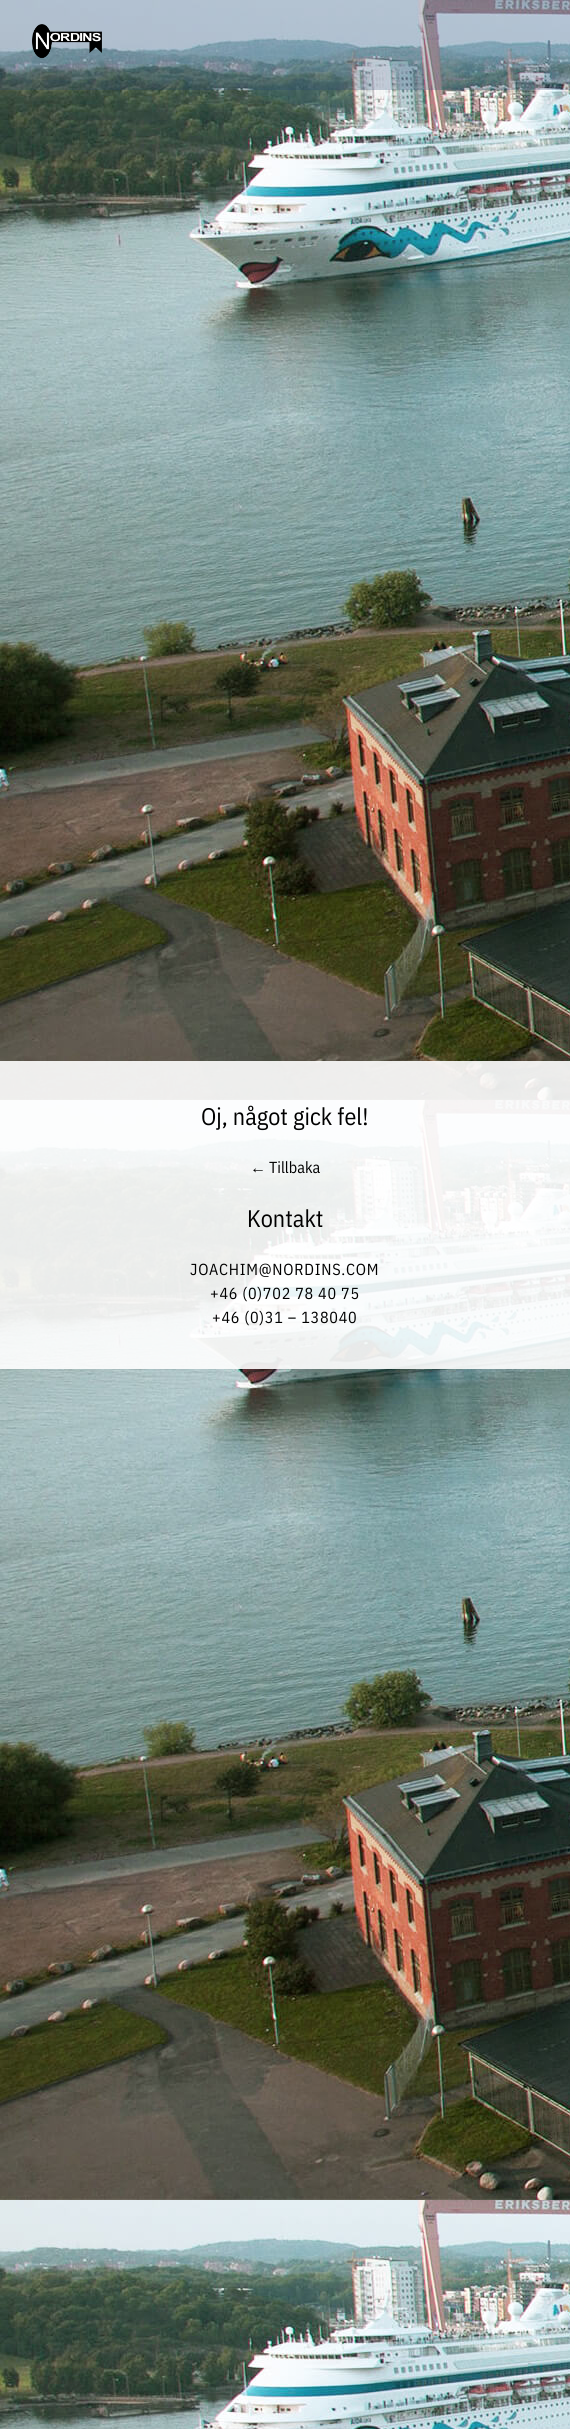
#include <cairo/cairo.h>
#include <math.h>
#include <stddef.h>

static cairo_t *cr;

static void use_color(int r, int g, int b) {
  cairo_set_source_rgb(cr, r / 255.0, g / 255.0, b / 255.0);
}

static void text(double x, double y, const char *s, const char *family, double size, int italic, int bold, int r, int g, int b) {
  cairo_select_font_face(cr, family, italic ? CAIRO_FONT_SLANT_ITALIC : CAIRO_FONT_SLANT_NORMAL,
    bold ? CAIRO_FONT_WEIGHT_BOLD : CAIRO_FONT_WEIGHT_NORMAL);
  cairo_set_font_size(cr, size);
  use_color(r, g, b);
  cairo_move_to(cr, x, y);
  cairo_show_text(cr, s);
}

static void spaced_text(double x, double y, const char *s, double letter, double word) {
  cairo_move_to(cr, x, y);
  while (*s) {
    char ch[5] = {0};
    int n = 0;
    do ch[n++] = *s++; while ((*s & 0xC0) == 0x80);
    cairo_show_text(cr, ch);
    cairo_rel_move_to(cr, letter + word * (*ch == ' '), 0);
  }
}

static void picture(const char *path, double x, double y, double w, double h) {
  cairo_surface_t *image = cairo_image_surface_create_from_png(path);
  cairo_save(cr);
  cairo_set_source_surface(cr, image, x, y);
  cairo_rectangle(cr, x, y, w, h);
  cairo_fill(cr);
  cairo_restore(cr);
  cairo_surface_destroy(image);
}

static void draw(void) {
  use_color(255, 255, 255);
  cairo_paint(cr);
  picture("img_02.png", 0, 0, 570, 2429);
  cairo_set_source_rgba(cr, 0.125, 0.255, 0.443, 0.25);
  cairo_rectangle(cr, 0, 0, 570, 90);
  cairo_fill(cr);
  picture("img_01.png", 32, 24, 70, 35);
  cairo_set_source_rgba(cr, 1, 1, 1, 0.9);
  cairo_rectangle(cr, 0, 1061, 570, 308);
  cairo_fill(cr);
  text(201, 1125, "Oj, något gick fel!", "IBM Plex Sans Condensed", 24, 0, 0, 0, 0, 0);
  text(250, 1173, "←", "Liberation Sans", 16, 0, 0, 0, 0, 0);
  text(269, 1173, "Tillbaka", "IBM Plex Sans Condensed", 16, 0, 0, 0, 0, 0);
  text(247, 1227, "Kontakt", "IBM Plex Sans Condensed", 24, 0, 0, 0, 0, 0);
  cairo_set_font_size(cr, 16);
  spaced_text(190, 1275, "JOACHIM@NORDINS.COM", 0.75, 0);
  spaced_text(210, 1299, "+46 (0)702 78 40 75", 0.75, 0);
  spaced_text(212, 1323, "+46 (0)31 – 138040", 0.75, 0);
}

int main(void) {
  cairo_surface_t *surface = cairo_image_surface_create(CAIRO_FORMAT_RGB24, 570, 2429);
  cr = cairo_create(surface);
  cairo_font_options_t *options = cairo_font_options_create();
  cairo_font_options_set_hint_metrics(options, CAIRO_HINT_METRICS_OFF);
  cairo_font_options_set_hint_style(options, CAIRO_HINT_STYLE_NONE);
  cairo_set_font_options(cr, options);
  cairo_set_miter_limit(cr, 4);
  draw();
  cairo_surface_write_to_png(surface, "out.png");
  cairo_font_options_destroy(options);
  cairo_destroy(cr);
  cairo_surface_destroy(surface);
  return 0;
}
